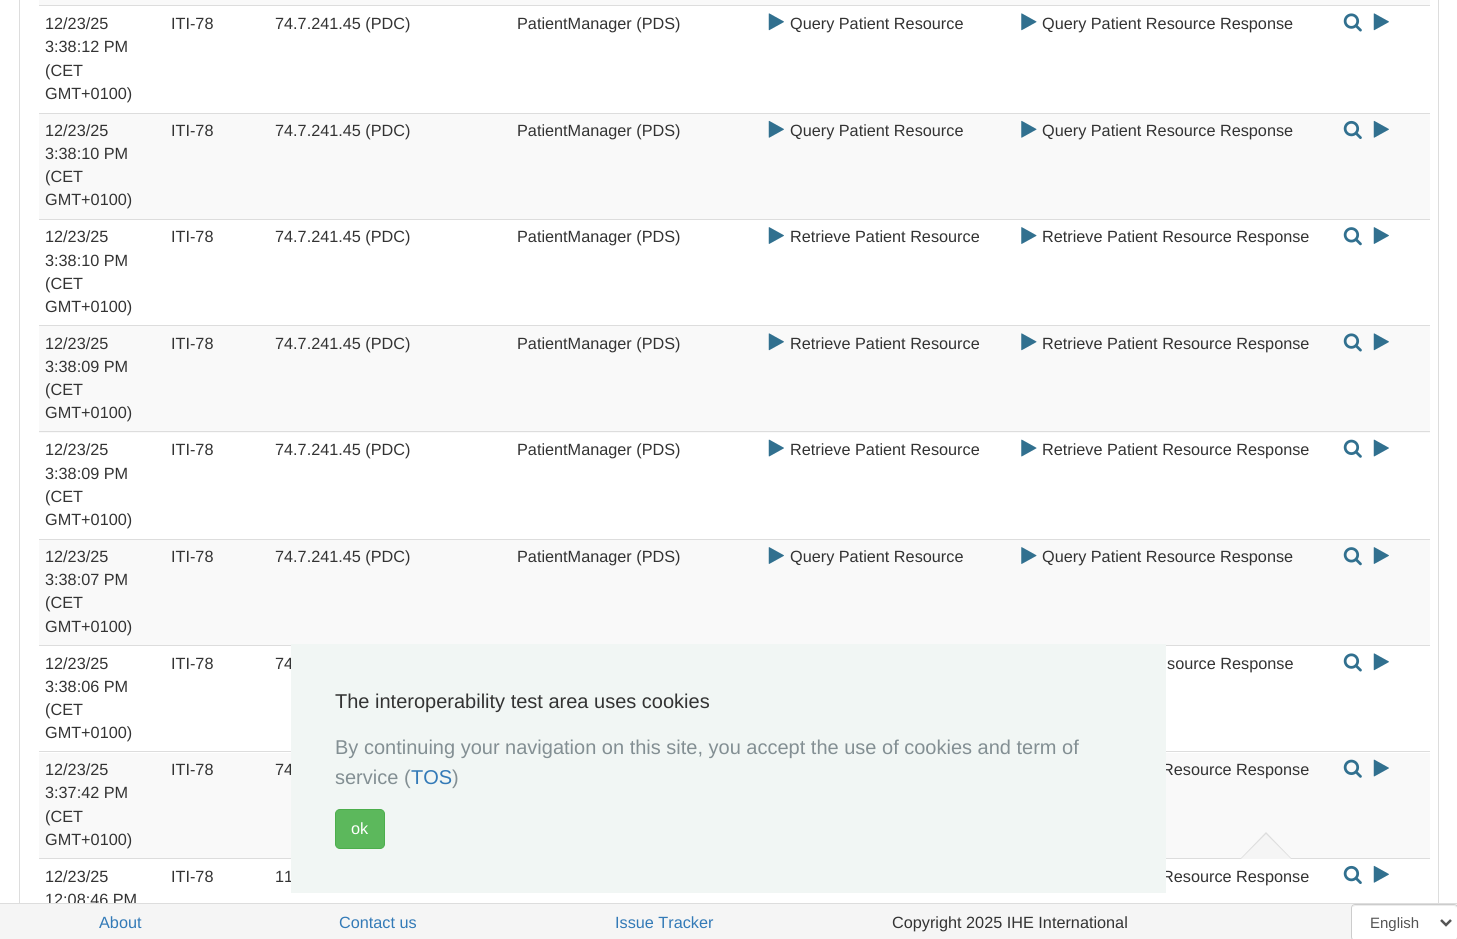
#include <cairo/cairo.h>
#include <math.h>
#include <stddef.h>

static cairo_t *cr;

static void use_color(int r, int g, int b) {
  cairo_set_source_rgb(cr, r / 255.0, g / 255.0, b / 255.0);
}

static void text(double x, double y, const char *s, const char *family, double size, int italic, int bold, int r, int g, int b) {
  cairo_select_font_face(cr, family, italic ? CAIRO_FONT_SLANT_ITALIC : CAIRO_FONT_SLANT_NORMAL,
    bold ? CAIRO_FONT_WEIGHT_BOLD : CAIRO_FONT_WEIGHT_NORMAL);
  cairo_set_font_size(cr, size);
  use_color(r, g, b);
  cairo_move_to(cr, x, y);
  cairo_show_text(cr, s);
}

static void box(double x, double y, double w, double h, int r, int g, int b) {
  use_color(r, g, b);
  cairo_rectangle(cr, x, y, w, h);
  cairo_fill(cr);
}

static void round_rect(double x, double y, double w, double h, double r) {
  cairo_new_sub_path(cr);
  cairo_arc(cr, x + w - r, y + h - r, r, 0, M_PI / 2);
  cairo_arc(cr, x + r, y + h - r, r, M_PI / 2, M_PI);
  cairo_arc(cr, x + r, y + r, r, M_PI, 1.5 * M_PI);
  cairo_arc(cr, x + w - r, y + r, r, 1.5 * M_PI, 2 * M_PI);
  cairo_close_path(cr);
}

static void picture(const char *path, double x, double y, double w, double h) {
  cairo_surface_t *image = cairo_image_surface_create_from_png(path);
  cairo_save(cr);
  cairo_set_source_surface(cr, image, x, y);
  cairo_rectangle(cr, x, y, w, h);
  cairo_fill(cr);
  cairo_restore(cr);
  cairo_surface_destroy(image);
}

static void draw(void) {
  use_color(255, 255, 255);
  cairo_paint(cr);
  cairo_rectangle(cr, 19.5, -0.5, 1419, 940);
  use_color(221, 221, 221);
  cairo_set_line_width(cr, 1);
  cairo_stroke(cr);
  box(39, 0, 1391, 5, 249, 249, 249);
  box(39, 5, 1391, 1, 221, 221, 221);
  picture("img_01.png", 1343, 13, 19, 19);
  picture("img_02.png", 1373, 13, 16, 18);
  picture("img_02.png", 768, 13, 16, 18);
  picture("img_03.png", 1021, 13, 16, 18);
  box(39, 114, 1391, 105, 249, 249, 249);
  box(39, 113, 1391, 1, 221, 221, 221);
  picture("img_04.png", 1343, 120, 19, 19);
  picture("img_05.png", 1373, 120, 16, 18);
  picture("img_05.png", 768, 120, 16, 18);
  picture("img_06.png", 1021, 120, 16, 18);
  box(39, 219, 1391, 1, 221, 221, 221);
  picture("img_07.png", 1343, 227, 19, 19);
  picture("img_08.png", 1373, 227, 16, 17);
  picture("img_08.png", 768, 227, 16, 17);
  picture("img_09.png", 1021, 227, 16, 17);
  box(39, 326, 1391, 107, 249, 249, 249);
  box(39, 325, 1391, 1, 221, 221, 221);
  picture("img_10.png", 1343, 333, 19, 19);
  picture("img_11.png", 1373, 333, 16, 18);
  picture("img_11.png", 768, 333, 16, 18);
  picture("img_12.png", 1021, 333, 16, 18);
  box(39, 431, 1391, 1, 221, 221, 221);
  picture("img_13.png", 1343, 439, 19, 19);
  picture("img_14.png", 1373, 439, 16, 18);
  picture("img_14.png", 768, 439, 16, 18);
  picture("img_15.png", 1021, 439, 16, 18);
  box(39, 540, 1391, 105, 249, 249, 249);
  box(39, 539, 1391, 1, 221, 221, 221);
  picture("img_16.png", 1343, 547, 19, 19);
  picture("img_17.png", 1373, 547, 16, 17);
  picture("img_17.png", 768, 547, 16, 17);
  picture("img_18.png", 1021, 547, 16, 17);
  box(39, 645, 252, 1, 221, 221, 221);
  box(1166, 645, 264, 1, 221, 221, 221);
  picture("img_01.png", 1343, 653, 19, 19);
  picture("img_02.png", 1373, 653, 16, 18);
  box(39, 753, 1391, 105, 249, 249, 249);
  box(39, 751, 252, 1, 221, 221, 221);
  box(1166, 751, 264, 1, 221, 221, 221);
  picture("img_19.png", 1343, 759, 19, 19);
  picture("img_20.png", 1373, 759, 16, 18);
  box(39, 858, 252, 1, 221, 221, 221);
  box(1166, 858, 264, 1, 221, 221, 221);
  picture("img_21.png", 1343, 865, 19, 19);
  picture("img_22.png", 1373, 865, 16, 18);
  cairo_new_path(cr);
  cairo_move_to(cr, 1292, 859);
  cairo_line_to(cr, 1240, 859);
  cairo_line_to(cr, 1266, 832);
  cairo_close_path(cr);
  cairo_fill(cr);
  use_color(245, 245, 245);
  cairo_new_path(cr);
  cairo_move_to(cr, 1291, 859);
  cairo_line_to(cr, 1241, 859);
  cairo_line_to(cr, 1266, 834);
  cairo_close_path(cr);
  cairo_fill(cr);
  text(45, 29, "12/23/25", "Liberation Sans", 16.25, 0, 0, 51, 51, 51);
  text(45, 52, "3:38:12 PM", "Liberation Sans", 16.25, 0, 0, 51, 51, 51);
  text(45, 76, "(CET", "Liberation Sans", 16.25, 0, 0, 51, 51, 51);
  text(45, 99, "GMT+0100)", "Liberation Sans", 16.25, 0, 0, 51, 51, 51);
  text(171, 29, "ITI-78", "Liberation Sans", 16.25, 0, 0, 51, 51, 51);
  text(275, 29, "74.7.241.45 (PDC)", "Liberation Sans", 16.25, 0, 0, 51, 51, 51);
  text(517, 29, "PatientManager (PDS)", "Liberation Sans", 16.25, 0, 0, 51, 51, 51);
  text(790, 29, "Query Patient Resource", "Liberation Sans", 16.25, 0, 0, 51, 51, 51);
  text(1042, 29, "Query Patient Resource Response", "Liberation Sans", 16.25, 0, 0, 51, 51, 51);
  text(45, 136, "12/23/25", "Liberation Sans", 16.25, 0, 0, 51, 51, 51);
  text(45, 159, "3:38:10 PM", "Liberation Sans", 16.25, 0, 0, 51, 51, 51);
  text(45, 182, "(CET", "Liberation Sans", 16.25, 0, 0, 51, 51, 51);
  text(45, 205, "GMT+0100)", "Liberation Sans", 16.25, 0, 0, 51, 51, 51);
  text(171, 136, "ITI-78", "Liberation Sans", 16.25, 0, 0, 51, 51, 51);
  text(275, 136, "74.7.241.45 (PDC)", "Liberation Sans", 16.25, 0, 0, 51, 51, 51);
  text(517, 136, "PatientManager (PDS)", "Liberation Sans", 16.25, 0, 0, 51, 51, 51);
  text(790, 136, "Query Patient Resource", "Liberation Sans", 16.25, 0, 0, 51, 51, 51);
  text(1042, 136, "Query Patient Resource Response", "Liberation Sans", 16.25, 0, 0, 51, 51, 51);
  text(45, 242, "12/23/25", "Liberation Sans", 16.25, 0, 0, 51, 51, 51);
  text(45, 266, "3:38:10 PM", "Liberation Sans", 16.25, 0, 0, 51, 51, 51);
  text(45, 289, "(CET", "Liberation Sans", 16.25, 0, 0, 51, 51, 51);
  text(45, 312, "GMT+0100)", "Liberation Sans", 16.25, 0, 0, 51, 51, 51);
  text(171, 242, "ITI-78", "Liberation Sans", 16.25, 0, 0, 51, 51, 51);
  text(275, 242, "74.7.241.45 (PDC)", "Liberation Sans", 16.25, 0, 0, 51, 51, 51);
  text(517, 242, "PatientManager (PDS)", "Liberation Sans", 16.25, 0, 0, 51, 51, 51);
  text(790, 242, "Retrieve Patient Resource", "Liberation Sans", 16.25, 0, 0, 51, 51, 51);
  text(1042, 242, "Retrieve Patient Resource Response", "Liberation Sans", 16.25, 0, 0, 51, 51, 51);
  text(45, 349, "12/23/25", "Liberation Sans", 16.25, 0, 0, 51, 51, 51);
  text(45, 372, "3:38:09 PM", "Liberation Sans", 16.25, 0, 0, 51, 51, 51);
  text(45, 395, "(CET", "Liberation Sans", 16.25, 0, 0, 51, 51, 51);
  text(45, 418, "GMT+0100)", "Liberation Sans", 16.25, 0, 0, 51, 51, 51);
  text(171, 349, "ITI-78", "Liberation Sans", 16.25, 0, 0, 51, 51, 51);
  text(275, 349, "74.7.241.45 (PDC)", "Liberation Sans", 16.25, 0, 0, 51, 51, 51);
  text(517, 349, "PatientManager (PDS)", "Liberation Sans", 16.25, 0, 0, 51, 51, 51);
  text(790, 349, "Retrieve Patient Resource", "Liberation Sans", 16.25, 0, 0, 51, 51, 51);
  text(1042, 349, "Retrieve Patient Resource Response", "Liberation Sans", 16.25, 0, 0, 51, 51, 51);
  text(45, 455, "12/23/25", "Liberation Sans", 16.25, 0, 0, 51, 51, 51);
  text(45, 479, "3:38:09 PM", "Liberation Sans", 16.25, 0, 0, 51, 51, 51);
  text(45, 502, "(CET", "Liberation Sans", 16.25, 0, 0, 51, 51, 51);
  text(45, 525, "GMT+0100)", "Liberation Sans", 16.25, 0, 0, 51, 51, 51);
  text(171, 455, "ITI-78", "Liberation Sans", 16.25, 0, 0, 51, 51, 51);
  text(275, 455, "74.7.241.45 (PDC)", "Liberation Sans", 16.25, 0, 0, 51, 51, 51);
  text(517, 455, "PatientManager (PDS)", "Liberation Sans", 16.25, 0, 0, 51, 51, 51);
  text(790, 455, "Retrieve Patient Resource", "Liberation Sans", 16.25, 0, 0, 51, 51, 51);
  text(1042, 455, "Retrieve Patient Resource Response", "Liberation Sans", 16.25, 0, 0, 51, 51, 51);
  text(45, 562, "12/23/25", "Liberation Sans", 16.25, 0, 0, 51, 51, 51);
  text(45, 585, "3:38:07 PM", "Liberation Sans", 16.25, 0, 0, 51, 51, 51);
  text(45, 608, "(CET", "Liberation Sans", 16.25, 0, 0, 51, 51, 51);
  text(45, 632, "GMT+0100)", "Liberation Sans", 16.25, 0, 0, 51, 51, 51);
  text(171, 562, "ITI-78", "Liberation Sans", 16.25, 0, 0, 51, 51, 51);
  text(275, 562, "74.7.241.45 (PDC)", "Liberation Sans", 16.25, 0, 0, 51, 51, 51);
  text(517, 562, "PatientManager (PDS)", "Liberation Sans", 16.25, 0, 0, 51, 51, 51);
  text(790, 562, "Query Patient Resource", "Liberation Sans", 16.25, 0, 0, 51, 51, 51);
  text(1042, 562, "Query Patient Resource Response", "Liberation Sans", 16.25, 0, 0, 51, 51, 51);
  text(45, 669, "12/23/25", "Liberation Sans", 16.25, 0, 0, 51, 51, 51);
  text(45, 692, "3:38:06 PM", "Liberation Sans", 16.25, 0, 0, 51, 51, 51);
  text(45, 715, "(CET", "Liberation Sans", 16.25, 0, 0, 51, 51, 51);
  text(45, 738, "GMT+0100)", "Liberation Sans", 16.25, 0, 0, 51, 51, 51);
  text(171, 669, "ITI-78", "Liberation Sans", 16.25, 0, 0, 51, 51, 51);
  text(275, 669, "74", "Liberation Sans", 16.25, 0, 0, 51, 51, 51);
  text(1167, 669, "source Response", "Liberation Sans", 16.25, 0, 0, 51, 51, 51);
  text(45, 775, "12/23/25", "Liberation Sans", 16.25, 0, 0, 51, 51, 51);
  text(45, 798, "3:37:42 PM", "Liberation Sans", 16.25, 0, 0, 51, 51, 51);
  text(45, 822, "(CET", "Liberation Sans", 16.25, 0, 0, 51, 51, 51);
  text(45, 845, "GMT+0100)", "Liberation Sans", 16.25, 0, 0, 51, 51, 51);
  text(171, 775, "ITI-78", "Liberation Sans", 16.25, 0, 0, 51, 51, 51);
  text(275, 775, "74", "Liberation Sans", 16.25, 0, 0, 51, 51, 51);
  text(1162, 775, "Resource Response", "Liberation Sans", 16.25, 0, 0, 51, 51, 51);
  text(45, 882, "12/23/25", "Liberation Sans", 16.25, 0, 0, 51, 51, 51);
  text(45, 905, "12:08:46 PM", "Liberation Sans", 16.25, 0, 0, 51, 51, 51);
  text(171, 882, "ITI-78", "Liberation Sans", 16.25, 0, 0, 51, 51, 51);
  text(275, 882, "11", "Liberation Sans", 16.25, 0, 0, 51, 51, 51);
  text(1162, 882, "Resource Response", "Liberation Sans", 16.25, 0, 0, 51, 51, 51);
  box(291, 644, 875, 249, 241, 246, 244);
  text(335, 708, "The interoperability test area uses cookies", "Liberation Sans", 20, 0, 0, 51, 51, 51);
  text(335, 754, "By continuing your navigation on this site, you accept the use of cookies and term of", "Liberation Sans", 20, 0, 0, 131, 143, 147);
  text(335, 784, "service (", "Liberation Sans", 20, 0, 0, 131, 143, 147);
  text(411, 784, "TOS", "Liberation Sans", 20, 0, 0, 51, 122, 183);
  text(452, 784, ")", "Liberation Sans", 20, 0, 0, 131, 143, 147);
  use_color(92, 184, 92);
  round_rect(335.5, 809.5, 49, 39, 4.5);
  cairo_fill_preserve(cr);
  use_color(76, 174, 76);
  cairo_stroke(cr);
  text(351, 834, "ok", "Liberation Sans", 16.25, 0, 0, 255, 255, 255);
  box(0, 904, 1457, 35, 245, 245, 245);
  box(0, 903, 1457, 1, 221, 221, 221);
  text(99, 928, "About", "Liberation Sans", 16.25, 0, 0, 51, 122, 183);
  text(339, 928, "Contact us", "Liberation Sans", 16.25, 0, 0, 51, 122, 183);
  text(615, 928, "Issue Tracker", "Liberation Sans", 16.25, 0, 0, 51, 122, 183);
  text(892, 928, "Copyright 2025 IHE International", "Liberation Sans", 16.25, 0, 0, 51, 51, 51);
  use_color(255, 255, 255);
  round_rect(1351, 904, 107, 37, 4);
  cairo_fill(cr);
  use_color(236, 236, 236);
  cairo_new_path(cr);
  cairo_move_to(cr, 1355, 906);
  cairo_line_to(cr, 1454, 906);
  cairo_curve_to(cr, 1455, 906, 1456, 907, 1456, 909);
  cairo_line_to(cr, 1456, 908);
  cairo_curve_to(cr, 1456, 906, 1455, 905, 1454, 905);
  cairo_line_to(cr, 1356, 905);
  cairo_curve_to(cr, 1354, 905, 1353, 906, 1353, 907);
  cairo_close_path(cr);
  cairo_fill(cr);
  round_rect(1351.5, 904.5, 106, 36, 3.5);
  use_color(204, 204, 204);
  cairo_stroke(cr);
  cairo_new_path(cr);
  cairo_move_to(cr, 1441, 920);
  cairo_line_to(cr, 1446, 925);
  cairo_line_to(cr, 1451, 920);
  use_color(85, 85, 85);
  cairo_set_line_width(cr, 2.5);
  cairo_stroke(cr);
  text(1370, 928, "English", "Liberation Sans", 15, 0, 0, 85, 85, 85);
}

int main(void) {
  cairo_surface_t *surface = cairo_image_surface_create(CAIRO_FORMAT_RGB24, 1457, 939);
  cr = cairo_create(surface);
  cairo_font_options_t *options = cairo_font_options_create();
  cairo_font_options_set_hint_metrics(options, CAIRO_HINT_METRICS_OFF);
  cairo_font_options_set_hint_style(options, CAIRO_HINT_STYLE_NONE);
  cairo_set_font_options(cr, options);
  cairo_set_miter_limit(cr, 4);
  draw();
  cairo_surface_write_to_png(surface, "out.png");
  cairo_font_options_destroy(options);
  cairo_destroy(cr);
  cairo_surface_destroy(surface);
  return 0;
}
